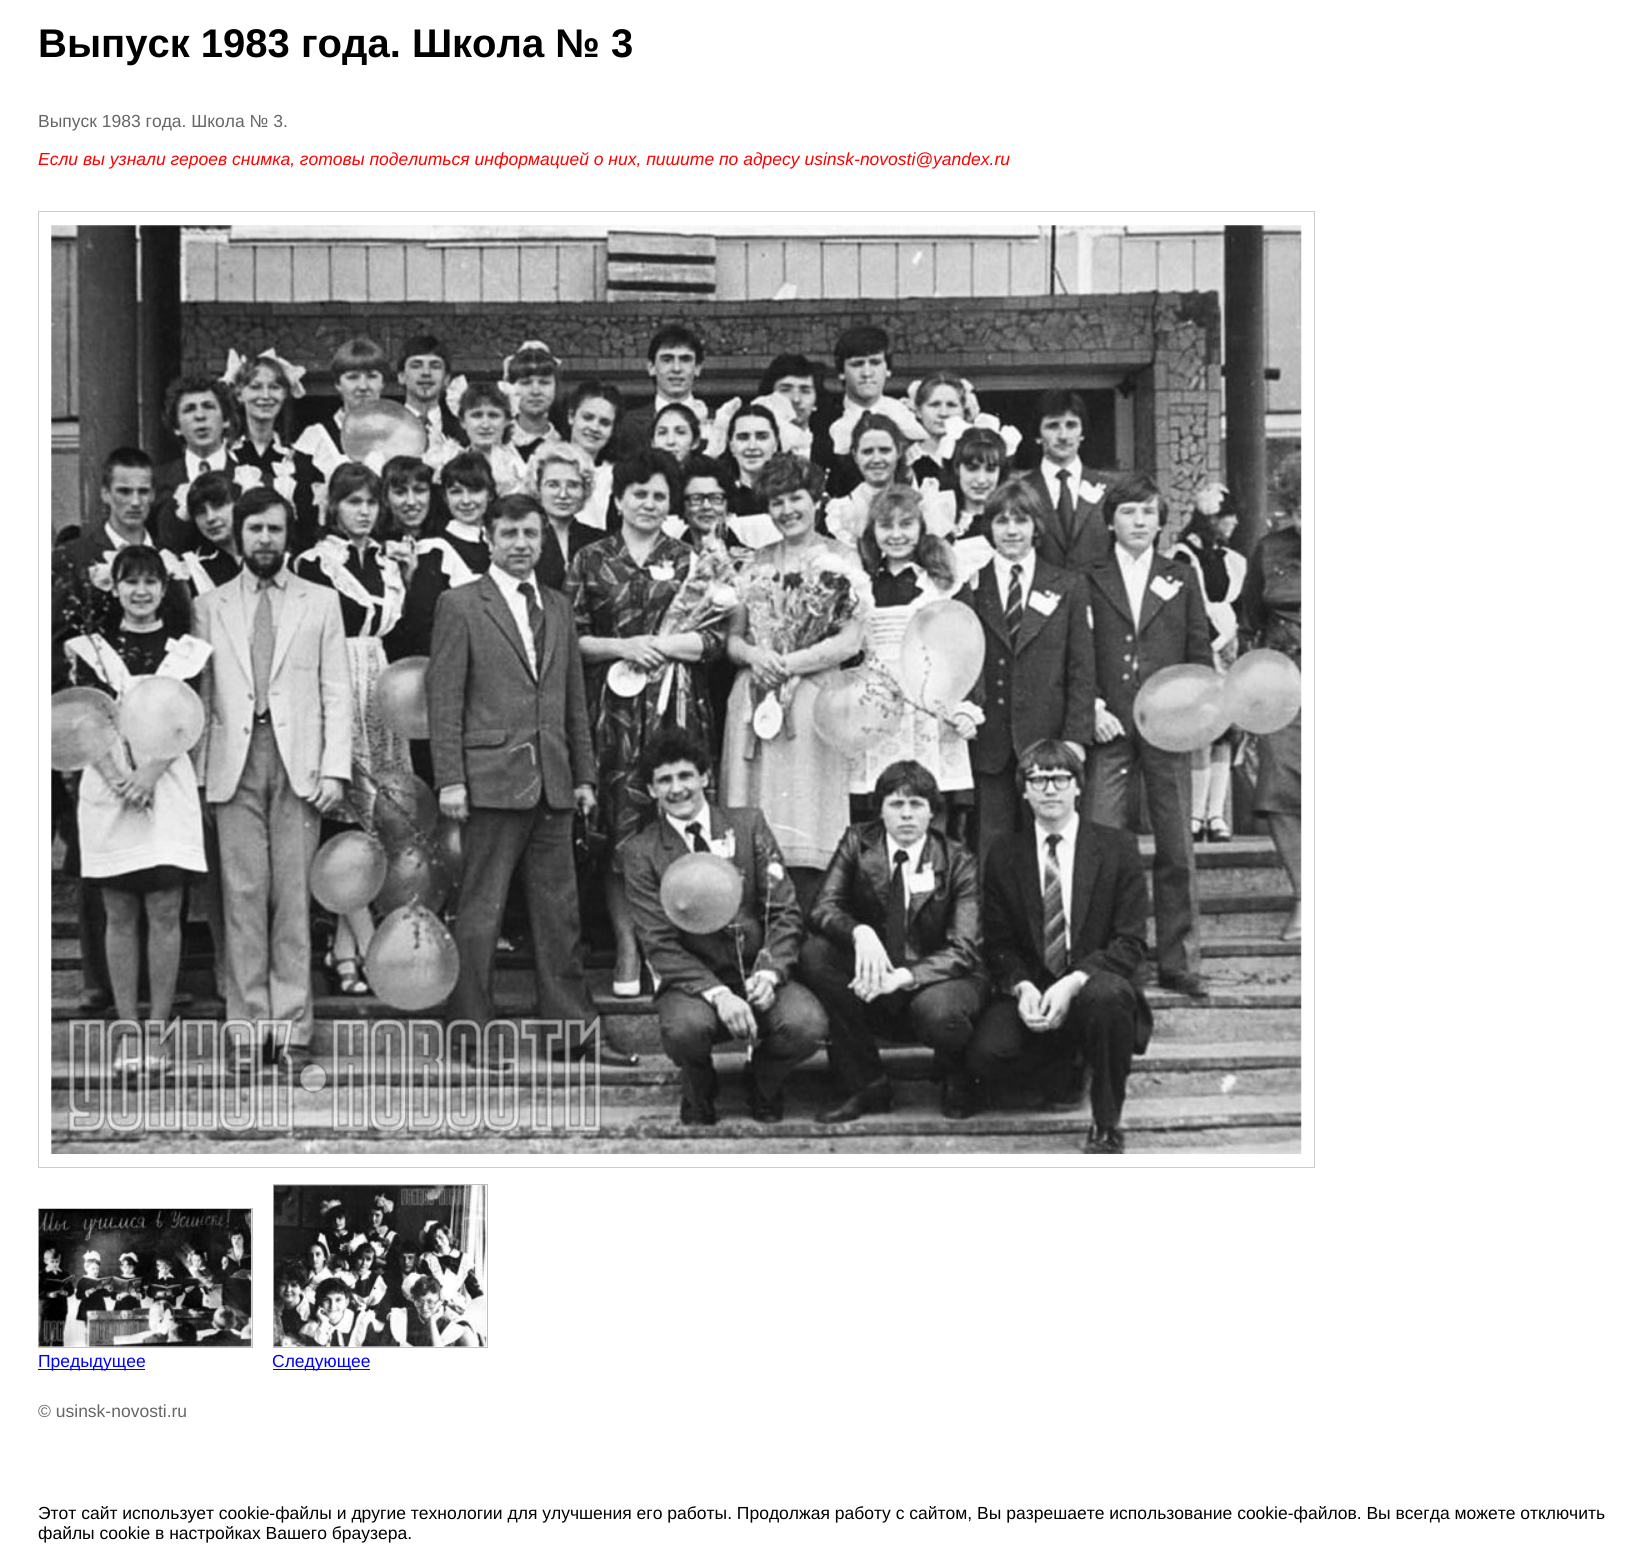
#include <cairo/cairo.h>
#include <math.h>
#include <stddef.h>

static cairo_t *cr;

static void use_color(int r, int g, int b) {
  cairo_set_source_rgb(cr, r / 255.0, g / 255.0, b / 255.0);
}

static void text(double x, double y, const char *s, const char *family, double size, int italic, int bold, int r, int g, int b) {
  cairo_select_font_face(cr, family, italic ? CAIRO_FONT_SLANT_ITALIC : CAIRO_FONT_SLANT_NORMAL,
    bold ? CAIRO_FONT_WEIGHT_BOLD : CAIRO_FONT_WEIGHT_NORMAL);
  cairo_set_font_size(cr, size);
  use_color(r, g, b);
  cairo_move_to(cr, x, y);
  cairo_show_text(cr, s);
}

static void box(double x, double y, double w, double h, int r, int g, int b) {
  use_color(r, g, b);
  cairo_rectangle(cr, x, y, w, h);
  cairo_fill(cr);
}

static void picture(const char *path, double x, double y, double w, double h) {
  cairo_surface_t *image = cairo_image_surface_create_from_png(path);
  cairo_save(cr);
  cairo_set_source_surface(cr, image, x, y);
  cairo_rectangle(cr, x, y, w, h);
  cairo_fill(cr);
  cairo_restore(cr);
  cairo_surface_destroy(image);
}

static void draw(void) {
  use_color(255, 255, 255);
  cairo_paint(cr);
  cairo_rectangle(cr, 38.5, 211.5, 1276, 956);
  use_color(204, 204, 204);
  cairo_set_line_width(cr, 1);
  cairo_stroke(cr);
  picture("img_01.png", 51, 225, 1251, 929);
  cairo_rectangle(cr, 38.5, 1208.5, 214, 139);
  use_color(192, 192, 192);
  cairo_stroke(cr);
  picture("img_02.png", 38, 1209, 214, 138);
  box(38, 1369, 107, 1, 0, 0, 255);
  cairo_rectangle(cr, 273.5, 1184.5, 214, 163);
  use_color(192, 192, 192);
  cairo_stroke(cr);
  picture("img_03.png", 273, 1185, 214, 162);
  box(273, 1369, 97, 1, 0, 0, 255);
  text(38, 57, "Выпуск 1983 года. Школа № 3", "Liberation Sans", 40, 0, 1, 0, 0, 0);
  text(38, 127, "Выпуск 1983 года. Школа № 3.", "Liberation Sans", 17.5, 0, 0, 102, 102, 102);
  text(38, 165, "Если вы узнали героев снимка, готовы поделиться информацией о них, пишите по адресу usinsk-novosti@yandex.ru", "Liberation Sans", 17.5, 1, 0, 255, 0, 0);
  text(38, 1367, "Предыдущее", "Liberation Sans", 17.5, 0, 0, 0, 0, 255);
  text(272, 1367, "Следующее", "Liberation Sans", 17.5, 0, 0, 0, 0, 255);
  text(38, 1417, "© usinsk-novosti.ru", "Liberation Sans", 17.5, 0, 0, 102, 102, 102);
  text(38, 1519, "Этот сайт использует cookie-файлы и другие технологии для улучшения его работы. Продолжая работу с сайтом, Вы разрешаете использование cookie-файлов. Вы всегда можете отключить", "Liberation Sans", 17.5, 0, 0, 0, 0, 0);
  text(38, 1539, "файлы cookie в настройках Вашего браузера.", "Liberation Sans", 17.5, 0, 0, 0, 0, 0);
}

int main(void) {
  cairo_surface_t *surface = cairo_image_surface_create(CAIRO_FORMAT_RGB24, 1648, 1555);
  cr = cairo_create(surface);
  cairo_font_options_t *options = cairo_font_options_create();
  cairo_font_options_set_hint_metrics(options, CAIRO_HINT_METRICS_OFF);
  cairo_font_options_set_hint_style(options, CAIRO_HINT_STYLE_NONE);
  cairo_set_font_options(cr, options);
  cairo_set_miter_limit(cr, 4);
  draw();
  cairo_surface_write_to_png(surface, "out.png");
  cairo_font_options_destroy(options);
  cairo_destroy(cr);
  cairo_surface_destroy(surface);
  return 0;
}
